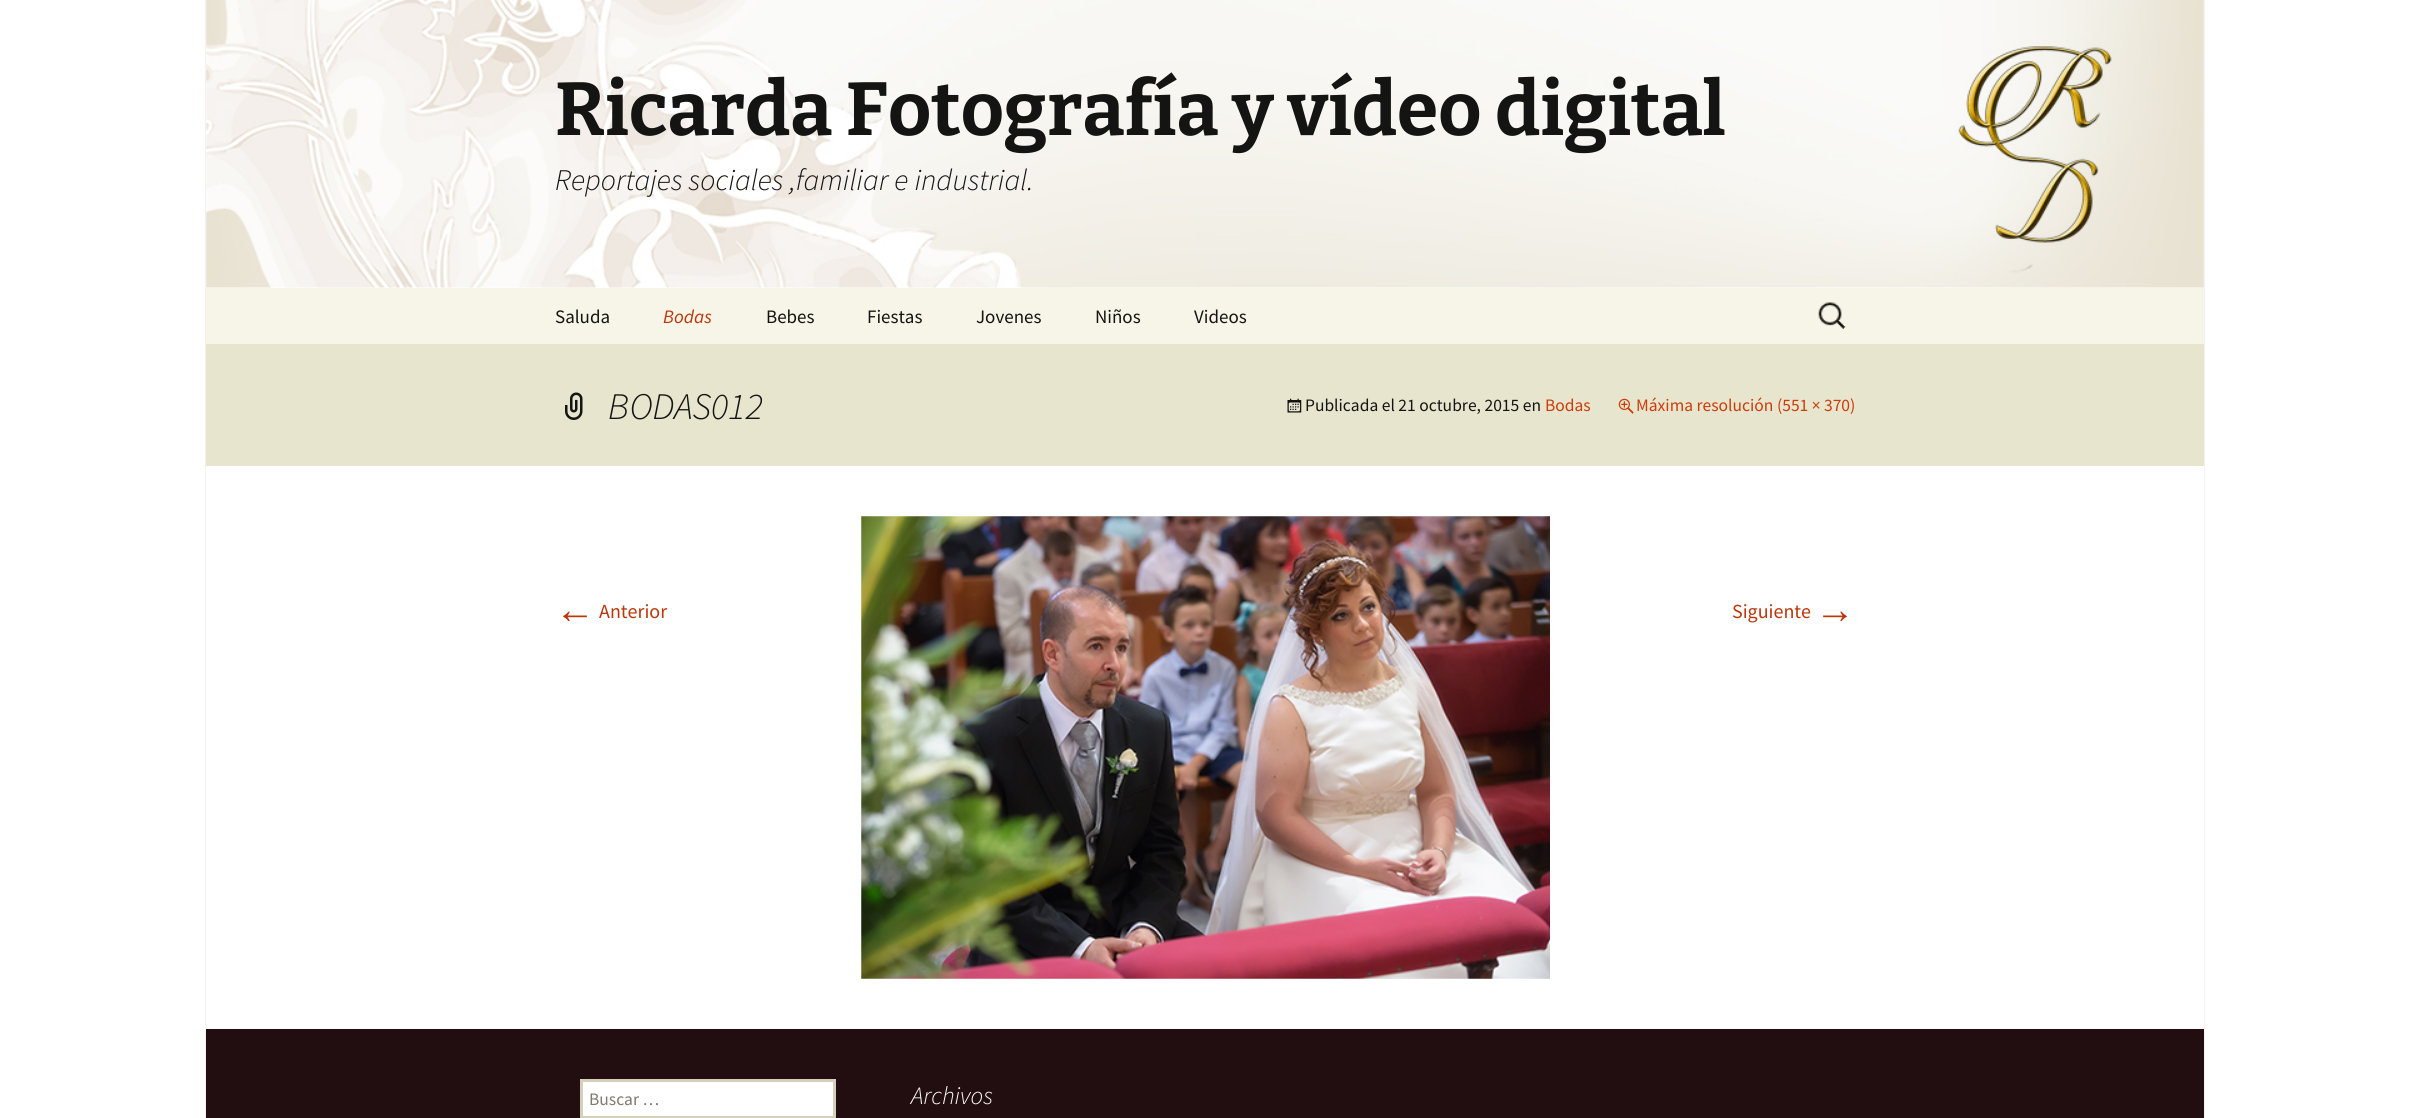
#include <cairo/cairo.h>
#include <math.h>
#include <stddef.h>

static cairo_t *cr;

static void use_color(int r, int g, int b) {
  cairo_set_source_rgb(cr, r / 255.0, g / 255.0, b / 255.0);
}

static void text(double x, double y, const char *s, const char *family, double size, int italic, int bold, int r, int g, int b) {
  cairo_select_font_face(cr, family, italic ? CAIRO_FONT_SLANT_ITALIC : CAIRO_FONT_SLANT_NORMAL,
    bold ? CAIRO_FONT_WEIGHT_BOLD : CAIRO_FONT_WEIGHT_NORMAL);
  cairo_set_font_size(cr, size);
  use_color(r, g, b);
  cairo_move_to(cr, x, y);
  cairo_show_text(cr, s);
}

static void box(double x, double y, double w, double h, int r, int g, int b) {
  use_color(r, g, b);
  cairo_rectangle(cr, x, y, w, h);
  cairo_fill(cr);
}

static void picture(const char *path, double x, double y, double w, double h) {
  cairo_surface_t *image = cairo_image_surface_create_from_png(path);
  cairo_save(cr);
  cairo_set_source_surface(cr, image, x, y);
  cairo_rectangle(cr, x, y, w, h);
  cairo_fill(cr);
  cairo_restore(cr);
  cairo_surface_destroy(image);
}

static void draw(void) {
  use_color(255, 255, 255);
  cairo_paint(cr);
  box(2204, 0, 1, 1118, 242, 242, 242);
  box(205, 0, 1, 1118, 242, 242, 242);
  picture("img_01.png", 206, 0, 1998, 288);
  box(206, 288, 1998, 56, 247, 245, 231);
  picture("img_02.png", 1818, 302, 28, 27);
  box(206, 344, 1998, 122, 232, 229, 206);
  picture("img_03.png", 565, 392, 18, 28);
  picture("img_04.png", 1287, 398, 15, 15);
  picture("img_05.png", 1618, 398, 16, 16);
  picture("img_06.png", 861, 516, 689, 463);
  box(206, 1029, 1998, 89, 34, 14, 16);
  use_color(255, 255, 255);
  cairo_rectangle(cr, 581.5, 1080.5, 253, 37);
  cairo_fill_preserve(cr);
  use_color(212, 208, 186);
  cairo_set_line_width(cr, 3);
  cairo_stroke(cr);
  text(555, 135, "Ricarda Fotografía y vídeo digital", "Bitter Thin", 75, 0, 0, 20, 20, 18);
  text(555, 190, "Reportajes sociales ,familiar e industrial.", "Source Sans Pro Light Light", 30, 1, 0, 20, 20, 18);
  text(555, 323, "Saluda", "Source Sans Pro", 19, 0, 0, 20, 20, 18);
  text(663, 323, "Bodas", "Source Sans Pro", 19, 1, 0, 188, 54, 10);
  text(766, 323, "Bebes", "Source Sans Pro", 19, 0, 0, 20, 20, 18);
  text(867, 323, "Fiestas", "Source Sans Pro", 19, 0, 0, 20, 20, 18);
  text(976, 323, "Jovenes", "Source Sans Pro", 19, 0, 0, 20, 20, 18);
  text(1095, 323, "Niños", "Source Sans Pro", 19, 0, 0, 20, 20, 18);
  text(1194, 323, "Videos", "Source Sans Pro", 19, 0, 0, 20, 20, 18);
  text(608, 419, "BODAS012", "Source Sans Pro Light Light", 37.5, 1, 0, 20, 20, 18);
  text(1305, 411, "Publicada el 21 octubre, 2015 en", "Source Sans Pro", 17.5, 0, 0, 20, 20, 18);
  text(1545, 411, "Bodas", "Source Sans Pro", 17.5, 0, 0, 202, 60, 8);
  text(1636, 411, "Máxima resolución (551 × 370)", "Source Sans Pro", 17.5, 0, 0, 202, 60, 8);
  text(555, 623, "←", "Liberation Sans", 40, 0, 0, 188, 54, 10);
  text(599, 618, "Anterior", "Source Sans Pro", 20, 0, 0, 188, 54, 10);
  text(1732, 618, "Siguiente", "Source Sans Pro", 20, 0, 0, 188, 54, 10);
  text(1815, 623, "→", "Liberation Sans", 40, 0, 0, 188, 54, 10);
  text(589, 1105, "Buscar …", "Source Sans Pro", 17.5, 0, 0, 125, 123, 109);
  text(911, 1104, "Archivos", "Source Sans Pro Light Light", 25, 1, 0, 255, 255, 255);
}

int main(void) {
  cairo_surface_t *surface = cairo_image_surface_create(CAIRO_FORMAT_RGB24, 2410, 1118);
  cr = cairo_create(surface);
  cairo_font_options_t *options = cairo_font_options_create();
  cairo_font_options_set_hint_metrics(options, CAIRO_HINT_METRICS_OFF);
  cairo_font_options_set_hint_style(options, CAIRO_HINT_STYLE_NONE);
  cairo_set_font_options(cr, options);
  cairo_set_miter_limit(cr, 4);
  draw();
  cairo_surface_write_to_png(surface, "out.png");
  cairo_font_options_destroy(options);
  cairo_destroy(cr);
  cairo_surface_destroy(surface);
  return 0;
}
